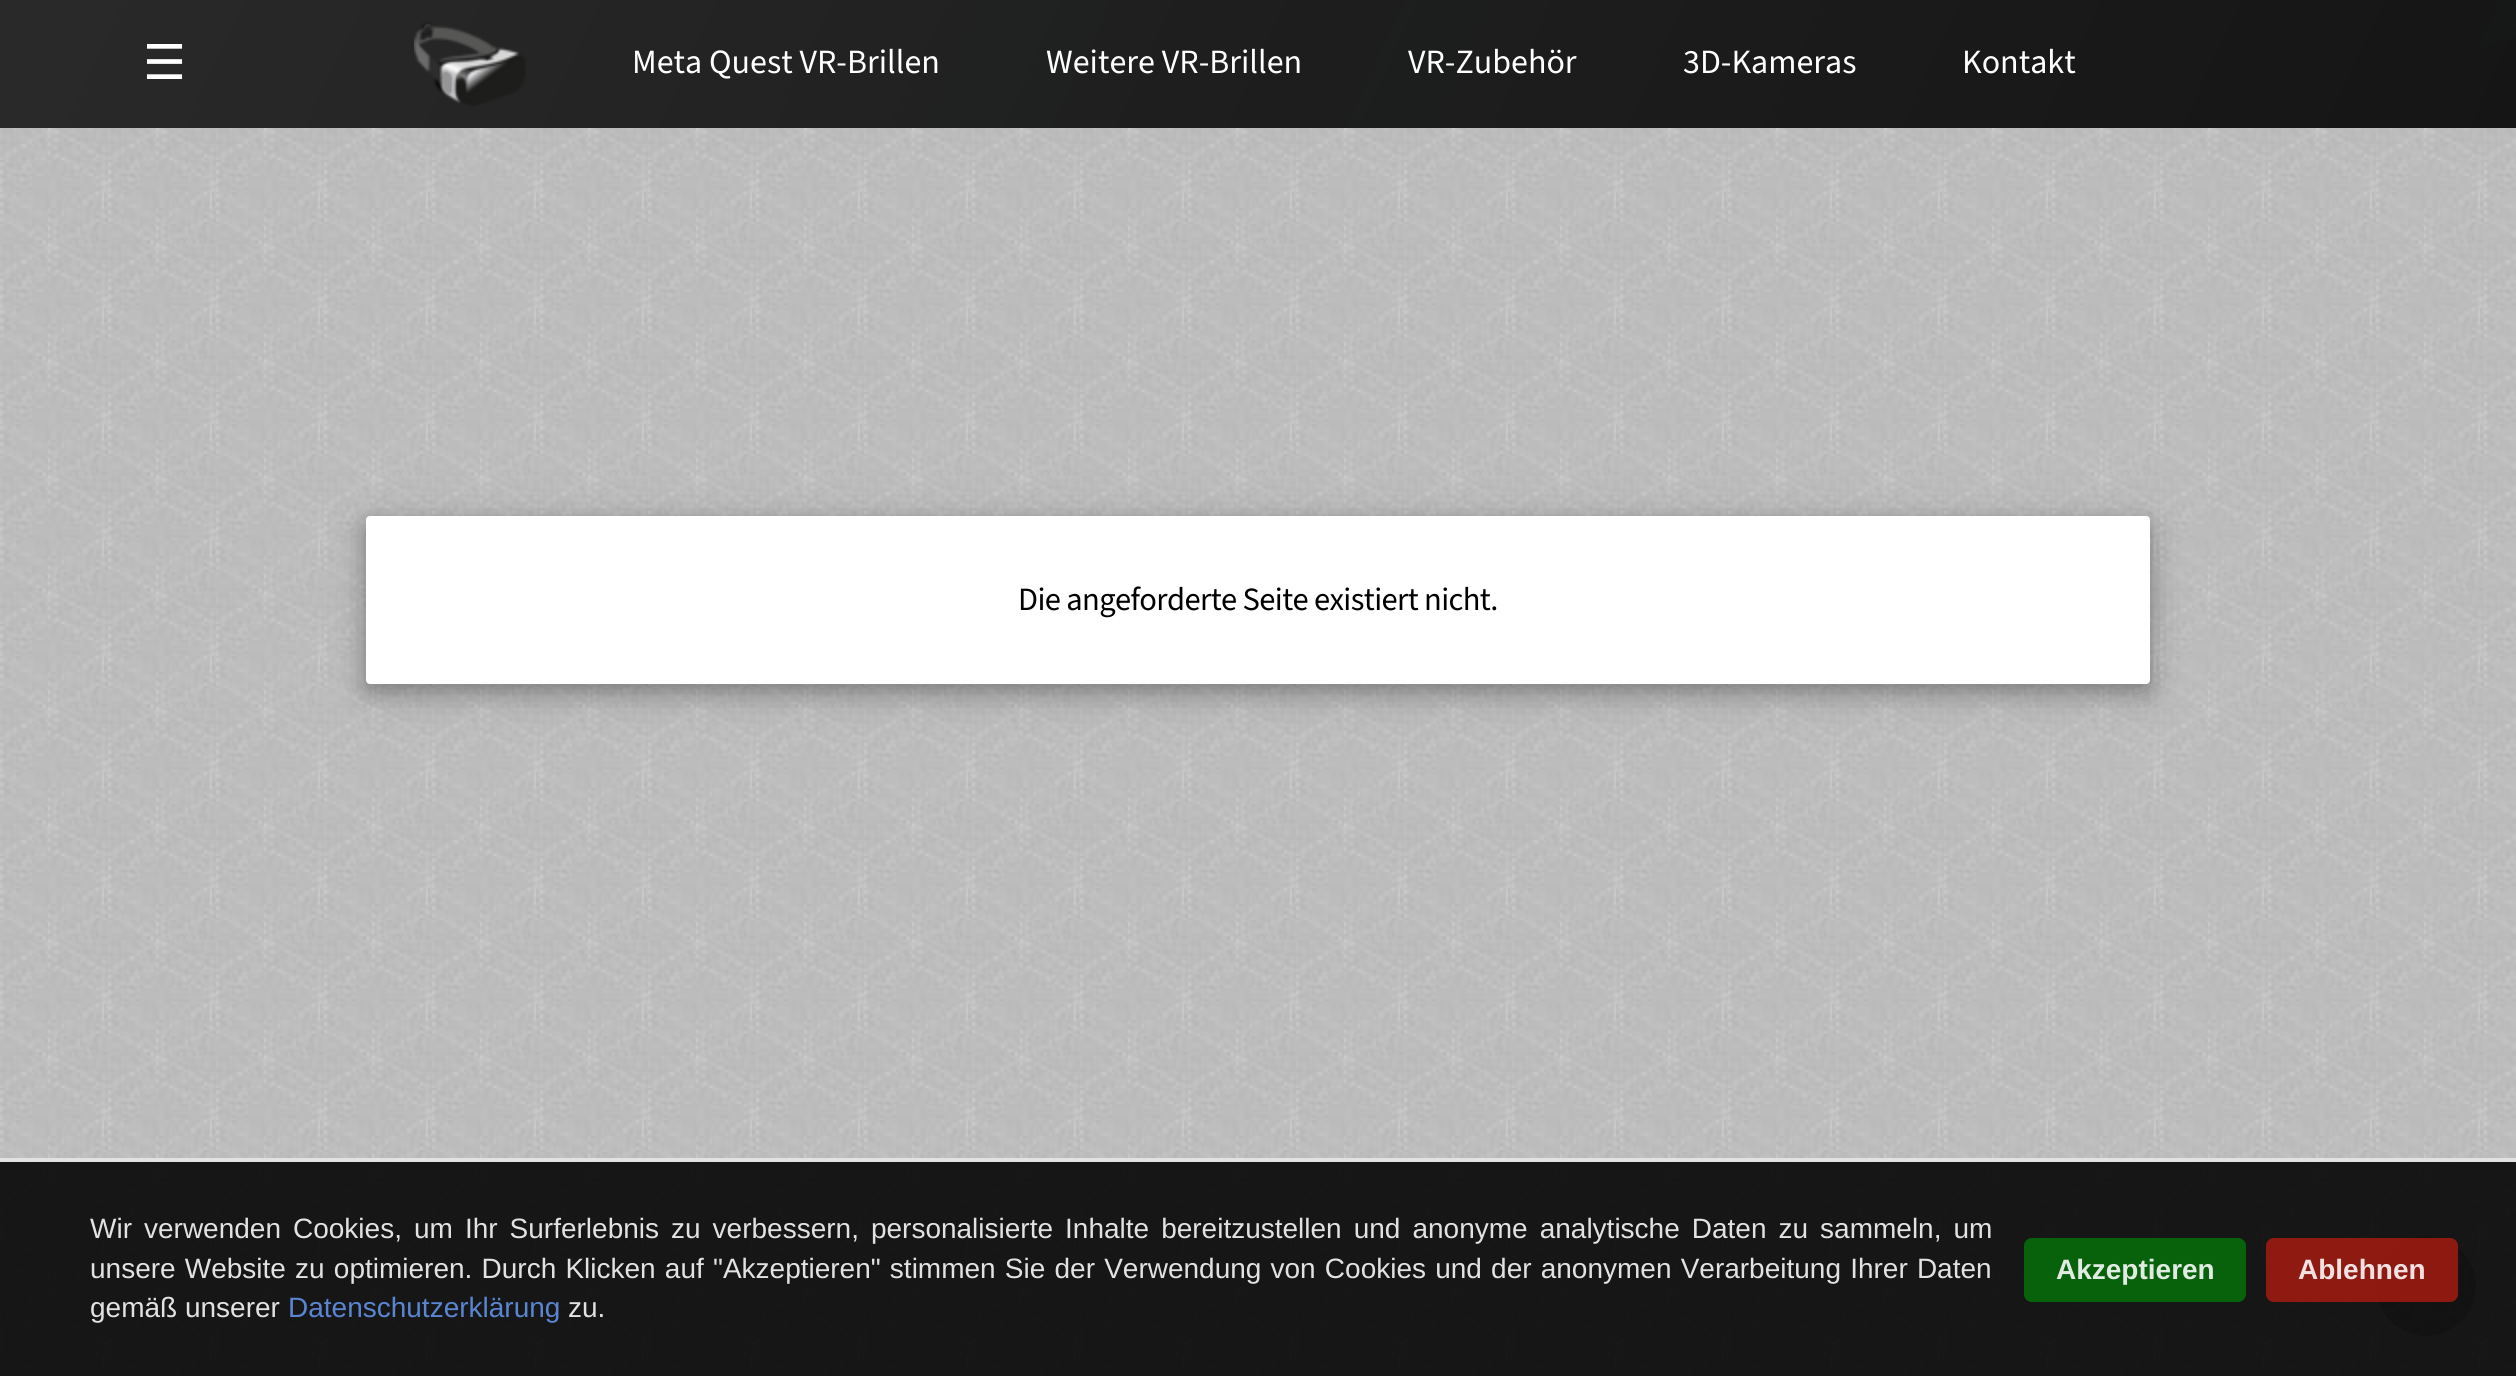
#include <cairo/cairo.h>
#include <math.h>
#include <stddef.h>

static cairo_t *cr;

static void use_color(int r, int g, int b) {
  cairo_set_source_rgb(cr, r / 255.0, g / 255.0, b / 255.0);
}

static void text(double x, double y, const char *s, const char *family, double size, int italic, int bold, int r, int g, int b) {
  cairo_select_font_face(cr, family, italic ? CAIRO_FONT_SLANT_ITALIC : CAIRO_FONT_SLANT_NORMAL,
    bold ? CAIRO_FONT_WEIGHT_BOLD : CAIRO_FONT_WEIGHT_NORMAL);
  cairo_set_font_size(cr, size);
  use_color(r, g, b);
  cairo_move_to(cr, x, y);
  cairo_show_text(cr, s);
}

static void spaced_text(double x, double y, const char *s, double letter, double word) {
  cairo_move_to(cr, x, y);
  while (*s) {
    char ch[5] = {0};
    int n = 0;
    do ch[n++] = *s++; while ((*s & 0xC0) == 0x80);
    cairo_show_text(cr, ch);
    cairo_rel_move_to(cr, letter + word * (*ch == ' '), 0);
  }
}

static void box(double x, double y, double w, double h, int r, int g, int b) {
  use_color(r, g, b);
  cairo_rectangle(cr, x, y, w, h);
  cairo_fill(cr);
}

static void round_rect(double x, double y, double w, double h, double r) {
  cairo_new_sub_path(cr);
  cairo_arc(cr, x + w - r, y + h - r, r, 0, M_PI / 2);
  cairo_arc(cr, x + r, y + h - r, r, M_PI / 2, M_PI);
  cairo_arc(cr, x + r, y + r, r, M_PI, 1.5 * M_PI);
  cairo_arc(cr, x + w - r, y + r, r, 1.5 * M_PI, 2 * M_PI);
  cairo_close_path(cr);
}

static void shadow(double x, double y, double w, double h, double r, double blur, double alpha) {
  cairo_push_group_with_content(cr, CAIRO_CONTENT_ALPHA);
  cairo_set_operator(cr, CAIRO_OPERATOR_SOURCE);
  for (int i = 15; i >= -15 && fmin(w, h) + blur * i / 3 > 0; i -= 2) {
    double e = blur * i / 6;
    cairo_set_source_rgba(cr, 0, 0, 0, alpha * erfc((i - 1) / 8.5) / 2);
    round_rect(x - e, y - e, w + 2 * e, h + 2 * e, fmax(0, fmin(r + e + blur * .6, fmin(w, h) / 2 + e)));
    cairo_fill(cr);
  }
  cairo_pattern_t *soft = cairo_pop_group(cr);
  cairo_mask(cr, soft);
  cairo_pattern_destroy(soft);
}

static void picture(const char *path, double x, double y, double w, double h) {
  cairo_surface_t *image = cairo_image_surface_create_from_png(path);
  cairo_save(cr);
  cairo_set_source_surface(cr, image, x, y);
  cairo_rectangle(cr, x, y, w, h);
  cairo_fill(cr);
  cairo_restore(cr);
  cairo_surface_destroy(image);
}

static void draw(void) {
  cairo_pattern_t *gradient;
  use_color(255, 255, 255);
  cairo_paint(cr);
  gradient = cairo_pattern_create_linear(1002, -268, 1514, 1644);
  cairo_pattern_add_color_stop_rgba(gradient, 0, 0.075, 0.09, 0.122, 1);
  cairo_pattern_add_color_stop_rgba(gradient, 1, 0.043, 0.051, 0.075, 1);
  cairo_set_source(cr, gradient);
  cairo_pattern_destroy(gradient);
  cairo_rectangle(cr, 0, 0, 2516, 128);
  cairo_fill(cr);
  gradient = cairo_pattern_create_linear(200, -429, 2316, 557);
  cairo_pattern_add_color_stop_rgba(gradient, 0, 0.169, 0.169, 0.169, 0.94);
  cairo_pattern_add_color_stop_rgba(gradient, 0.5, 0.118, 0.118, 0.118, 0.98);
  cairo_pattern_add_color_stop_rgba(gradient, 1, 0.086, 0.086, 0.086, 0.92);
  cairo_set_source(cr, gradient);
  cairo_pattern_destroy(gradient);
  cairo_rectangle(cr, 0, 0, 2516, 128);
  cairo_fill(cr);
  picture("img_01.png", 414, 22, 112, 84);
  picture("img_02.png", 0, 128, 2516, 1248);
  use_color(0, 0, 0);
  shadow(366, 524, 1784, 168, 4, 20, 0.19);
  shadow(366, 524, 1784, 168, 4, 10, 0.2);
  use_color(255, 255, 255);
  round_rect(366, 516, 1784, 168, 4);
  cairo_fill(cr);
  cairo_set_source_rgba(cr, 0.118, 0.118, 0.118, 0.2);
  cairo_arc(cr, 2426, 1286, 50, 0, 2 * M_PI);
  cairo_fill(cr);
  gradient = cairo_pattern_create_radial(2426, 1286, 0, 2426, 1286, 71);
  cairo_pattern_add_color_stop_rgba(gradient, 0, 1, 1, 1, 0.04);
  cairo_pattern_add_color_stop_rgba(gradient, 0.7, 1, 1, 1, 0);
  cairo_set_source(cr, gradient);
  cairo_pattern_destroy(gradient);
  cairo_rectangle(cr, 2408, 1268, 36, 36);
  cairo_fill(cr);
  cairo_new_path(cr);
  cairo_move_to(cr, 2408, 1274);
  cairo_line_to(cr, 2444, 1274);
  cairo_move_to(cr, 2408, 1286);
  cairo_line_to(cr, 2444, 1286);
  cairo_move_to(cr, 2408, 1298);
  cairo_line_to(cr, 2444, 1298);
  cairo_set_source_rgba(cr, 1, 1, 1, 0.2);
  cairo_set_line_width(cr, 4.8);
  cairo_stroke(cr);
  cairo_set_source_rgba(cr, 0, 0, 0, 0.88);
  cairo_rectangle(cr, 0, 1162, 2516, 214);
  cairo_fill(cr);
  box(0, 1158, 2516, 4, 226, 226, 226);
  cairo_set_source_rgba(cr, 0.024, 0.424, 0.039, 0.88);
  round_rect(2024, 1238, 222, 64, 8);
  cairo_fill(cr);
  cairo_set_source_rgba(cr, 0.624, 0.106, 0.071, 0.88);
  round_rect(2266, 1238, 192, 64, 8);
  cairo_fill(cr);
  text(143, 79, "☰", "DejaVu Sans", 48, 0, 0, 255, 255, 255);
  text(632, 73, "Meta Quest VR-Brillen", "Source Sans 3 ExtraLight", 34, 0, 0, 255, 255, 255);
  text(1046, 73, "Weitere VR-Brillen", "Source Sans 3 ExtraLight", 34, 0, 0, 255, 255, 255);
  text(1408, 73, "VR-Zubehör", "Source Sans 3 ExtraLight", 34, 0, 0, 255, 255, 255);
  text(1683, 73, "3D-Kameras", "Source Sans 3 ExtraLight", 34, 0, 0, 255, 255, 255);
  text(1962, 73, "Kontakt", "Source Sans 3 ExtraLight", 34, 0, 0, 255, 255, 255);
  cairo_set_font_size(cr, 32.5);
  use_color(0, 0, 0);
  spaced_text(1018, 610, "Die angeforderte Seite existiert nicht.", -0.6, 0);
  cairo_select_font_face(cr, "Liberation Sans", CAIRO_FONT_SLANT_NORMAL, CAIRO_FONT_WEIGHT_NORMAL);
  cairo_set_font_size(cr, 28);
  use_color(226, 226, 226);
  spaced_text(90, 1238, "Wir verwenden Cookies, um Ihr Surferlebnis zu verbessern, personalisierte Inhalte bereitzustellen und anonyme analytische Daten zu sammeln, um", 0, 4.25);
  spaced_text(90, 1278, "unsere Website zu optimieren. Durch Klicken auf \"Akzeptieren\" stimmen Sie der Verwendung von Cookies und der anonymen Verarbeitung Ihrer Daten", 0, 1.4);
  text(90, 1317, "gemäß unserer", "Liberation Sans", 28, 0, 0, 226, 226, 226);
  text(288, 1317, "Datenschutzerklärung", "Liberation Sans", 28, 0, 0, 90, 133, 210);
  text(568, 1317, "zu.", "Liberation Sans", 28, 0, 0, 226, 226, 226);
  text(2056, 1279, "Akzeptieren", "Liberation Sans", 28, 0, 1, 224, 235, 225);
  text(2298, 1279, "Ablehnen", "Liberation Sans", 28, 0, 1, 241, 226, 225);
}

int main(void) {
  cairo_surface_t *surface = cairo_image_surface_create(CAIRO_FORMAT_RGB24, 2516, 1376);
  cr = cairo_create(surface);
  cairo_font_options_t *options = cairo_font_options_create();
  cairo_font_options_set_hint_metrics(options, CAIRO_HINT_METRICS_OFF);
  cairo_font_options_set_hint_style(options, CAIRO_HINT_STYLE_NONE);
  cairo_set_font_options(cr, options);
  cairo_set_miter_limit(cr, 4);
  draw();
  cairo_surface_write_to_png(surface, "out.png");
  cairo_font_options_destroy(options);
  cairo_destroy(cr);
  cairo_surface_destroy(surface);
  return 0;
}
